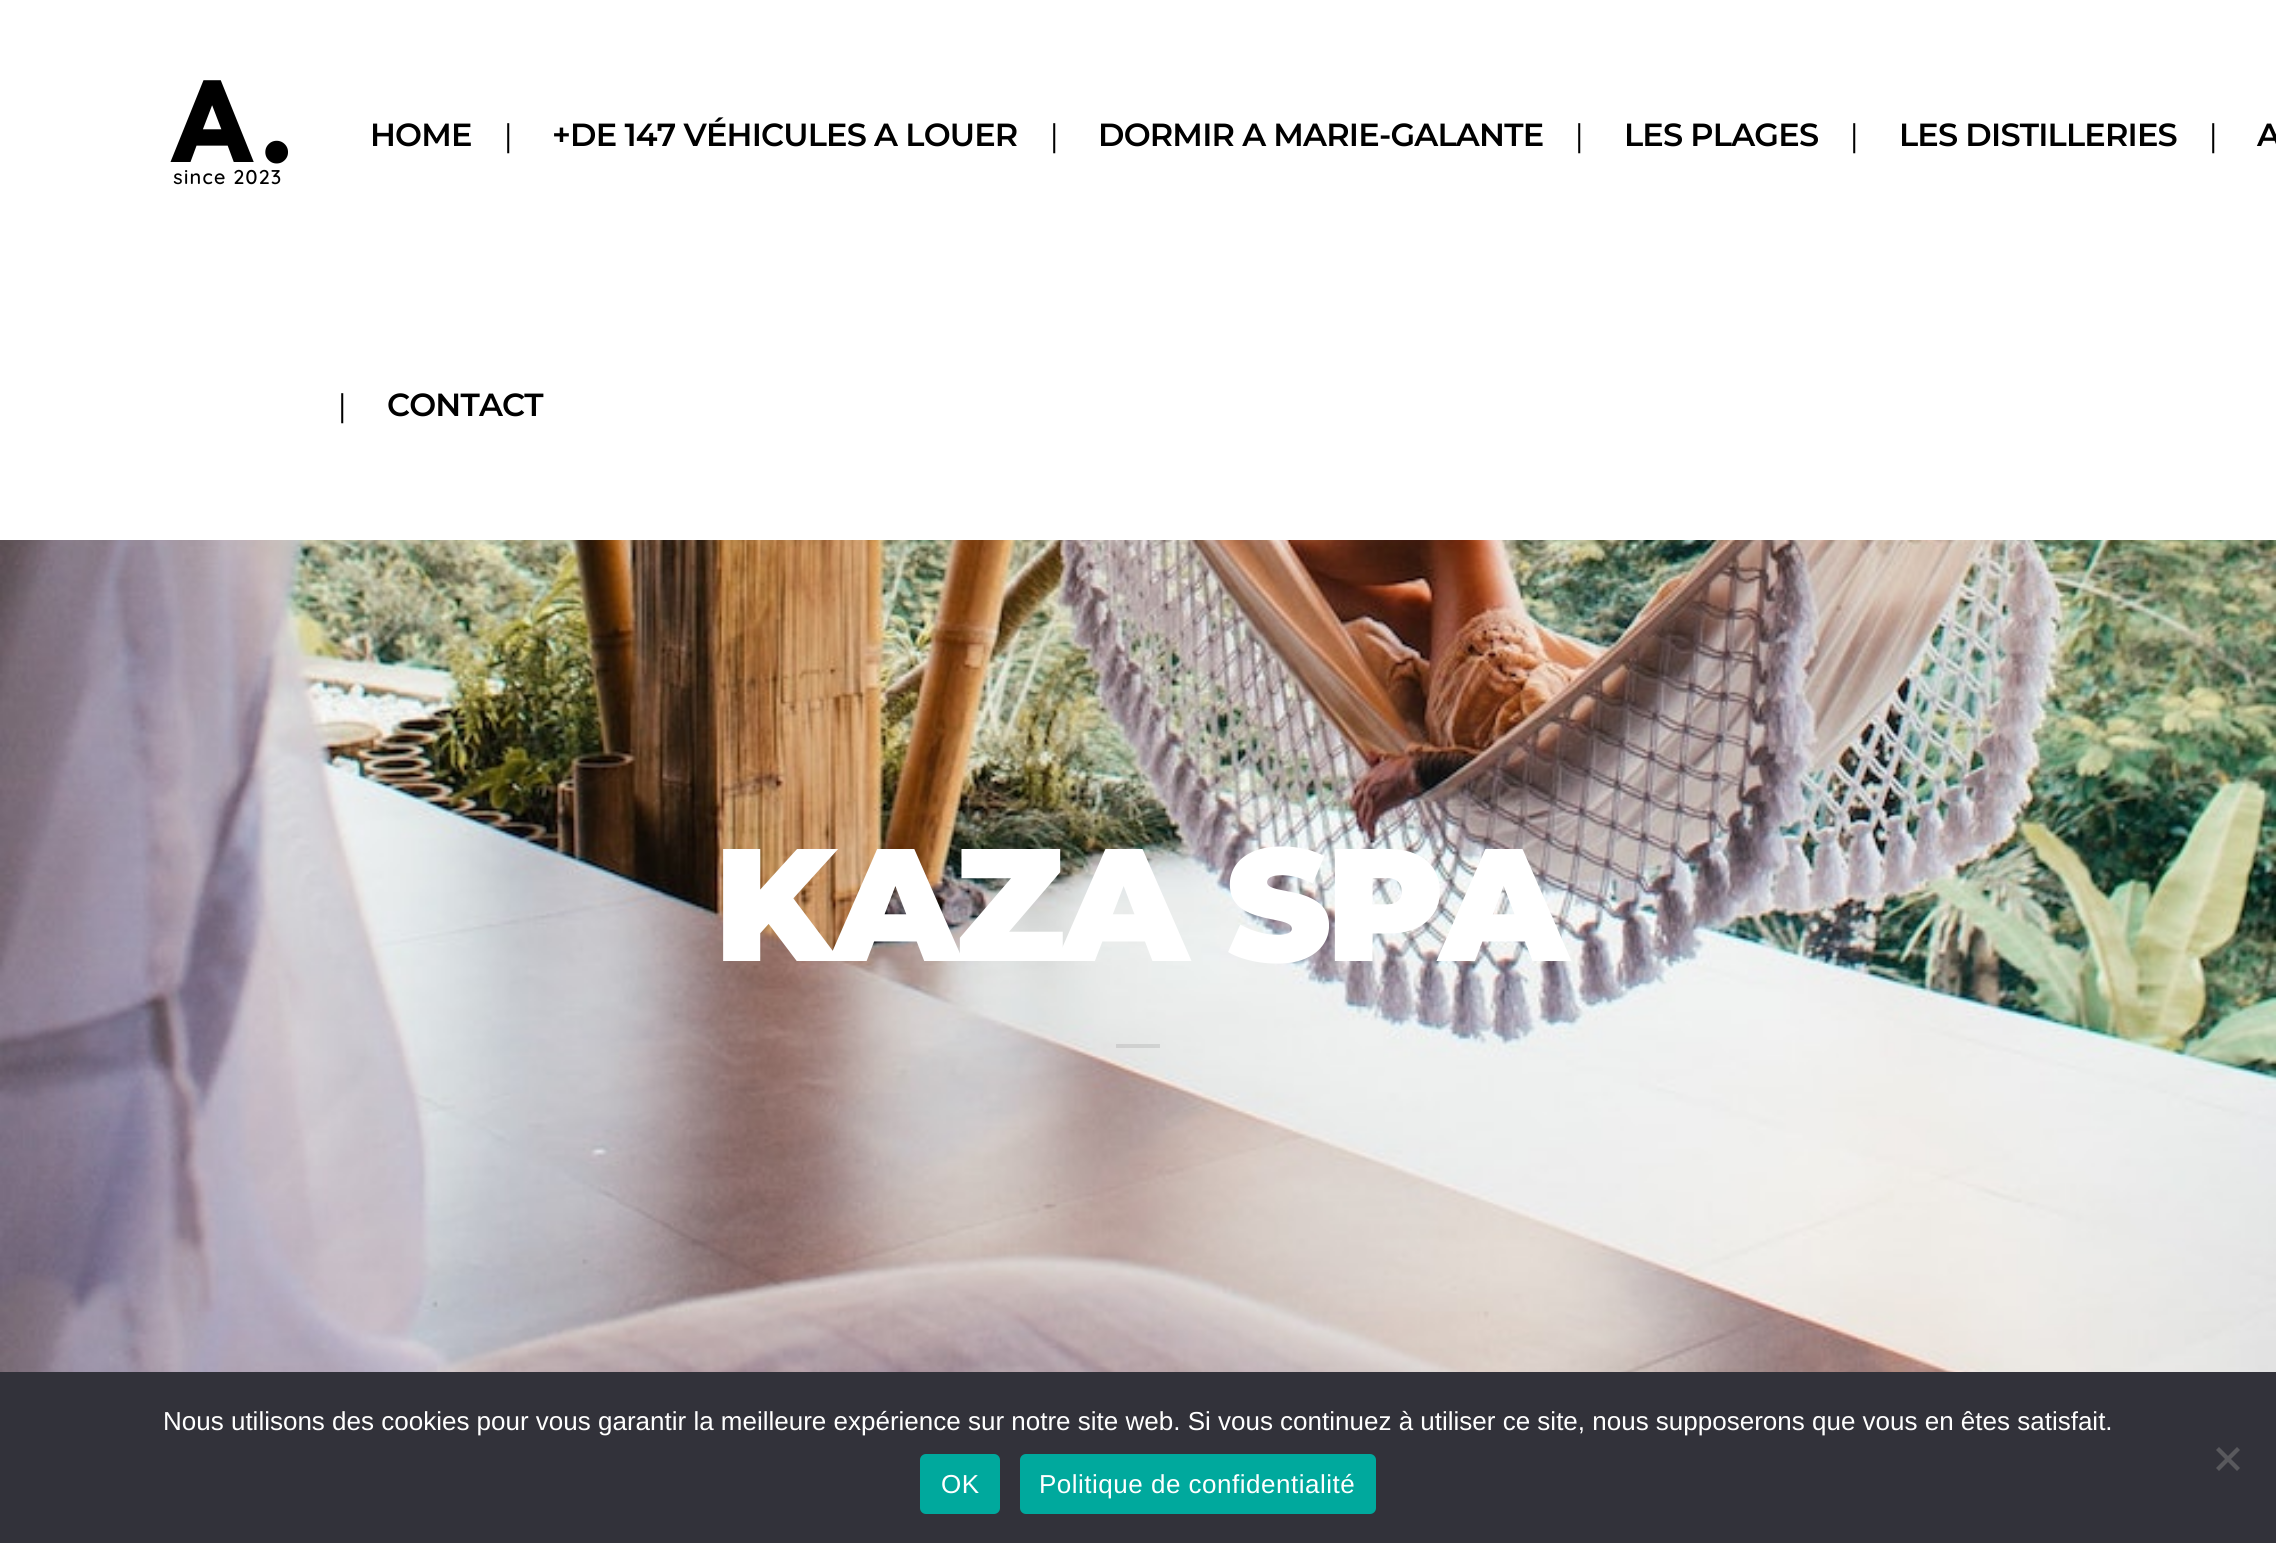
#include <cairo/cairo.h>
#include <math.h>
#include <stddef.h>

static cairo_t *cr;

static void use_color(int r, int g, int b) {
  cairo_set_source_rgb(cr, r / 255.0, g / 255.0, b / 255.0);
}

static void text(double x, double y, const char *s, const char *family, double size, int italic, int bold, int r, int g, int b) {
  cairo_select_font_face(cr, family, italic ? CAIRO_FONT_SLANT_ITALIC : CAIRO_FONT_SLANT_NORMAL,
    bold ? CAIRO_FONT_WEIGHT_BOLD : CAIRO_FONT_WEIGHT_NORMAL);
  cairo_set_font_size(cr, size);
  use_color(r, g, b);
  cairo_move_to(cr, x, y);
  cairo_show_text(cr, s);
}

static void spaced_text(double x, double y, const char *s, double letter, double word) {
  cairo_move_to(cr, x, y);
  while (*s) {
    char ch[5] = {0};
    int n = 0;
    do ch[n++] = *s++; while ((*s & 0xC0) == 0x80);
    cairo_show_text(cr, ch);
    cairo_rel_move_to(cr, letter + word * (*ch == ' '), 0);
  }
}

static void box(double x, double y, double w, double h, int r, int g, int b) {
  use_color(r, g, b);
  cairo_rectangle(cr, x, y, w, h);
  cairo_fill(cr);
}

static void round_rect(double x, double y, double w, double h, double r) {
  cairo_new_sub_path(cr);
  cairo_arc(cr, x + w - r, y + h - r, r, 0, M_PI / 2);
  cairo_arc(cr, x + r, y + h - r, r, M_PI / 2, M_PI);
  cairo_arc(cr, x + r, y + r, r, M_PI, 1.5 * M_PI);
  cairo_arc(cr, x + w - r, y + r, r, 1.5 * M_PI, 2 * M_PI);
  cairo_close_path(cr);
}

static void picture(const char *path, double x, double y, double w, double h) {
  cairo_surface_t *image = cairo_image_surface_create_from_png(path);
  cairo_save(cr);
  cairo_set_source_surface(cr, image, x, y);
  cairo_rectangle(cr, x, y, w, h);
  cairo_fill(cr);
  cairo_restore(cr);
  cairo_surface_destroy(image);
}

static void draw(void) {
  use_color(255, 255, 255);
  cairo_paint(cr);
  picture("img_01.png", 170, 80, 118, 105);
  picture("img_02.png", 0, 540, 2276, 832);
  cairo_set_source_rgba(cr, 0.62, 0.62, 0.62, 0.3);
  cairo_rectangle(cr, 1116, 1044, 44, 4);
  cairo_fill(cr);
  box(0, 1372, 2276, 171, 50, 50, 58);
  use_color(89, 89, 93);
  cairo_new_path(cr);
  cairo_move_to(cr, 2237, 1447);
  cairo_line_to(cr, 2240, 1450);
  cairo_line_to(cr, 2219, 1471);
  cairo_line_to(cr, 2216, 1468);
  cairo_close_path(cr);
  cairo_fill(cr);
  cairo_new_path(cr);
  cairo_move_to(cr, 2216, 1450);
  cairo_line_to(cr, 2219, 1447);
  cairo_line_to(cr, 2240, 1468);
  cairo_line_to(cr, 2237, 1471);
  cairo_close_path(cr);
  cairo_fill(cr);
  use_color(0, 169, 157);
  round_rect(920, 1454, 80, 60, 6);
  cairo_fill(cr);
  round_rect(1020, 1454, 356, 60, 6);
  cairo_fill(cr);
  cairo_select_font_face(cr, "Montserrat SemiBold", CAIRO_FONT_SLANT_NORMAL, CAIRO_FONT_WEIGHT_NORMAL);
  cairo_set_font_size(cr, 32);
  use_color(0, 0, 0);
  spaced_text(370, 146, "HOME", -0.8, 0);
  text(500, 146, "|", "Open Sans", 30, 0, 0, 0, 0, 0);
  cairo_select_font_face(cr, "Montserrat SemiBold", CAIRO_FONT_SLANT_NORMAL, CAIRO_FONT_WEIGHT_NORMAL);
  cairo_set_font_size(cr, 32);
  spaced_text(552, 146, "+DE 147 VÉHICULES A LOUER", -0.8, 0);
  text(1046, 146, "|", "Open Sans", 30, 0, 0, 0, 0, 0);
  cairo_select_font_face(cr, "Montserrat SemiBold", CAIRO_FONT_SLANT_NORMAL, CAIRO_FONT_WEIGHT_NORMAL);
  cairo_set_font_size(cr, 32);
  spaced_text(1098, 146, "DORMIR A MARIE-GALANTE", -0.8, 0);
  text(1571, 146, "|", "Open Sans", 30, 0, 0, 0, 0, 0);
  cairo_select_font_face(cr, "Montserrat SemiBold", CAIRO_FONT_SLANT_NORMAL, CAIRO_FONT_WEIGHT_NORMAL);
  cairo_set_font_size(cr, 32);
  spaced_text(1624, 146, "LES PLAGES", -0.8, 0);
  text(1846, 146, "|", "Open Sans", 30, 0, 0, 0, 0, 0);
  cairo_select_font_face(cr, "Montserrat SemiBold", CAIRO_FONT_SLANT_NORMAL, CAIRO_FONT_WEIGHT_NORMAL);
  cairo_set_font_size(cr, 32);
  spaced_text(1899, 146, "LES DISTILLERIES", -0.8, 0);
  text(2205, 146, "|", "Open Sans", 30, 0, 0, 0, 0, 0);
  cairo_select_font_face(cr, "Montserrat SemiBold", CAIRO_FONT_SLANT_NORMAL, CAIRO_FONT_WEIGHT_NORMAL);
  cairo_set_font_size(cr, 32);
  spaced_text(2257, 146, "A", -0.8, 0);
  text(334, 416, "|", "Open Sans", 30, 0, 0, 0, 0, 0);
  cairo_select_font_face(cr, "Montserrat SemiBold", CAIRO_FONT_SLANT_NORMAL, CAIRO_FONT_WEIGHT_NORMAL);
  cairo_set_font_size(cr, 32);
  spaced_text(387, 416, "CONTACT", -0.8, 0);
  cairo_select_font_face(cr, "Montserrat Black", CAIRO_FONT_SLANT_NORMAL, CAIRO_FONT_WEIGHT_NORMAL);
  cairo_set_font_size(cr, 160);
  use_color(255, 255, 255);
  spaced_text(714, 961, "KAZA SPA", -5.25, 0);
  text(163, 1430, "Nous utilisons des cookies pour vous garantir la meilleure expérience sur notre site web. Si vous continuez à utiliser ce site, nous supposerons que vous en êtes satisfait.", "Liberation Sans", 26, 0, 0, 255, 255, 255);
  spaced_text(941, 1493, "OK", 0.5, 0);
  spaced_text(1039, 1493, "Politique de confidentialité", 0.5, 0);
}

int main(void) {
  cairo_surface_t *surface = cairo_image_surface_create(CAIRO_FORMAT_RGB24, 2276, 1543);
  cr = cairo_create(surface);
  cairo_font_options_t *options = cairo_font_options_create();
  cairo_font_options_set_hint_metrics(options, CAIRO_HINT_METRICS_OFF);
  cairo_font_options_set_hint_style(options, CAIRO_HINT_STYLE_NONE);
  cairo_set_font_options(cr, options);
  cairo_set_miter_limit(cr, 4);
  draw();
  cairo_surface_write_to_png(surface, "out.png");
  cairo_font_options_destroy(options);
  cairo_destroy(cr);
  cairo_surface_destroy(surface);
  return 0;
}
